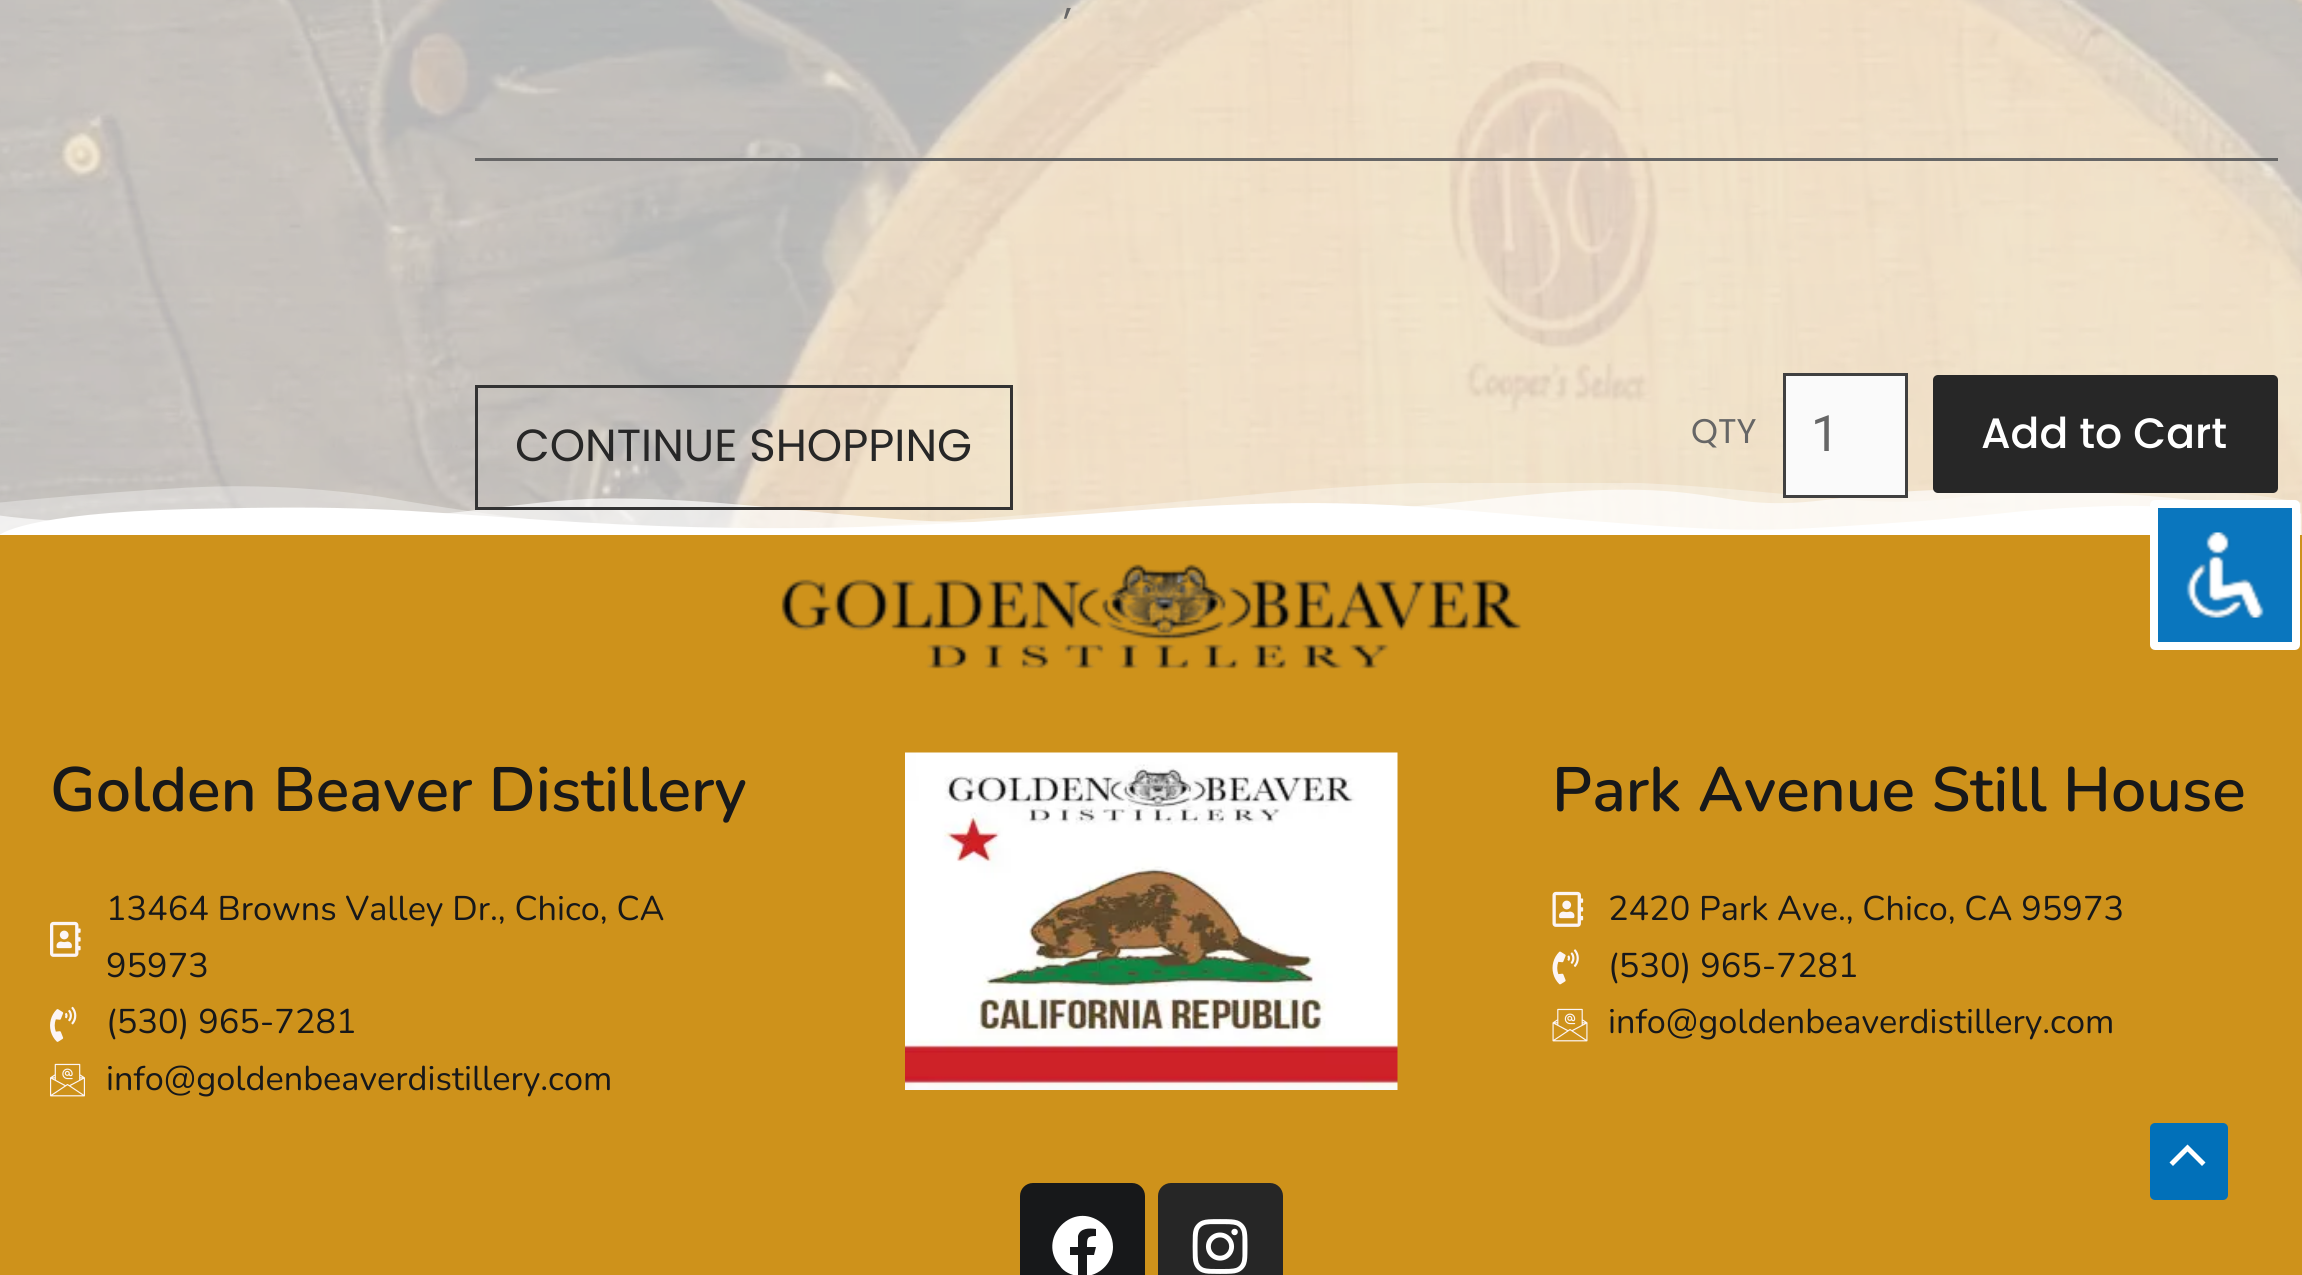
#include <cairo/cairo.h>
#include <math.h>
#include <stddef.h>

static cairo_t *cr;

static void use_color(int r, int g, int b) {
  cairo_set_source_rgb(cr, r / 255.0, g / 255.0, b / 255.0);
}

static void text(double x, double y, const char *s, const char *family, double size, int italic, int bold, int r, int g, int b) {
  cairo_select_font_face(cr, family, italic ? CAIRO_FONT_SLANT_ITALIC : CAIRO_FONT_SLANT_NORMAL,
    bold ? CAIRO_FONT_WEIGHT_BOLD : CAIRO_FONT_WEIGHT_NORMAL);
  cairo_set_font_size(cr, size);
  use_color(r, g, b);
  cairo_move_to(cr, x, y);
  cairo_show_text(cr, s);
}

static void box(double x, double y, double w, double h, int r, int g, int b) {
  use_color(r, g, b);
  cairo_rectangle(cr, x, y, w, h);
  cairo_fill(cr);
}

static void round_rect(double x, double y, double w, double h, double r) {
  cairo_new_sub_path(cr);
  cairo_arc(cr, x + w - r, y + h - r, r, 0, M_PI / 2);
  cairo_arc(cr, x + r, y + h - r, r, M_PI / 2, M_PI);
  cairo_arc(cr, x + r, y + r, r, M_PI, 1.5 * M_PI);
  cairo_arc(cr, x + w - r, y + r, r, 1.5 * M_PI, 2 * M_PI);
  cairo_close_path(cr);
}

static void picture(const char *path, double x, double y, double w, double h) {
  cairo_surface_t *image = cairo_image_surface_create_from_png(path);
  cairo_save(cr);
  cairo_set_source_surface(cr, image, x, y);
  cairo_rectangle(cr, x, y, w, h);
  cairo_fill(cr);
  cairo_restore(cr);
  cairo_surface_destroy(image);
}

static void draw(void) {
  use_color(255, 255, 255);
  cairo_paint(cr);
  picture("img_01.png", 0, 0, 2302, 535);
  cairo_set_source_rgba(cr, 0.757, 0.816, 0.835, 0.24);
  cairo_rectangle(cr, 0, 0, 2302, 535);
  cairo_fill(cr);
  picture("img_02.png", 0, 0, 2302, 535);
  box(475, 158, 1803, 3, 102, 102, 102);
  picture("img_03.png", 0, 483, 2302, 52);
  cairo_rectangle(cr, 476.5, 386.5, 535, 122);
  use_color(51, 51, 51);
  cairo_set_line_width(cr, 3);
  cairo_stroke(cr);
  use_color(250, 250, 250);
  cairo_rectangle(cr, 1784.5, 374.5, 122, 122);
  cairo_fill_preserve(cr);
  use_color(64, 64, 64);
  cairo_stroke(cr);
  use_color(39, 39, 39);
  round_rect(1933, 375, 345, 118, 5);
  cairo_fill(cr);
  box(0, 535, 2302, 740, 206, 146, 27);
  picture("img_04.png", 781, 564, 741, 105);
  picture("img_05.png", 50, 921, 31, 36);
  picture("img_06.png", 50, 1006, 27, 36);
  picture("img_07.png", 50, 1063, 35, 34);
  picture("img_08.png", 905, 752, 493, 338);
  picture("img_09.png", 1552, 891, 32, 36);
  picture("img_10.png", 1552, 949, 27, 36);
  picture("img_11.png", 1552, 1008, 36, 34);
  use_color(23, 24, 26);
  round_rect(1020, 1183, 125, 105, 13);
  cairo_fill(cr);
  use_color(255, 255, 255);
  cairo_new_path(cr);
  cairo_move_to(cr, 1113, 1247);
  cairo_curve_to(cr, 1113, 1261, 1102, 1274, 1087, 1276);
  cairo_line_to(cr, 1087, 1255);
  cairo_line_to(cr, 1094, 1255);
  cairo_line_to(cr, 1096, 1247);
  cairo_line_to(cr, 1087, 1247);
  cairo_curve_to(cr, 1087, 1238, 1087, 1236, 1096, 1236);
  cairo_line_to(cr, 1096, 1229);
  cairo_curve_to(cr, 1089, 1228, 1080, 1228, 1078, 1236);
  cairo_line_to(cr, 1078, 1247);
  cairo_line_to(cr, 1070, 1247);
  cairo_line_to(cr, 1070, 1255);
  cairo_line_to(cr, 1078, 1255);
  cairo_line_to(cr, 1078, 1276);
  cairo_curve_to(cr, 1071, 1275, 1064, 1272, 1060, 1266);
  cairo_curve_to(cr, 1037, 1240, 1070, 1202, 1099, 1221);
  cairo_curve_to(cr, 1108, 1227, 1113, 1237, 1113, 1247);
  cairo_close_path(cr);
  cairo_fill(cr);
  use_color(38, 38, 38);
  round_rect(1158, 1183, 125, 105, 13);
  cairo_fill(cr);
  picture("img_12.png", 1192, 1219, 56, 55);
  use_color(10, 118, 190);
  round_rect(2154, 504, 142, 142, 1);
  cairo_fill_preserve(cr);
  use_color(255, 255, 255);
  cairo_set_line_width(cr, 8);
  cairo_stroke(cr);
  picture("img_13.png", 2186, 532, 78, 86);
  use_color(1, 112, 185);
  round_rect(2150, 1123, 78, 77, 5);
  cairo_fill(cr);
  use_color(255, 255, 255);
  cairo_new_path(cr);
  cairo_move_to(cr, 2205.5, 1162.5);
  cairo_line_to(cr, 2187.5, 1144.5);
  cairo_line_to(cr, 2169.5, 1162.5);
  cairo_line_to(cr, 2173, 1166);
  cairo_line_to(cr, 2187.5, 1151.5);
  cairo_line_to(cr, 2202, 1166);
  cairo_close_path(cr);
  cairo_fill(cr);
  text(1064, 13, ",", "Poppins", 40, 0, 0, 102, 102, 102);
  text(515, 461, "CONTINUE SHOPPING", "Poppins", 45, 0, 0, 39, 39, 39);
  text(1691, 443, "QTY", "Poppins", 34.25, 0, 0, 102, 102, 102);
  text(1811, 451, "1", "Roboto", 50, 0, 0, 102, 102, 102);
  text(1981, 448, "Add to Cart", "Poppins Medium", 42.5, 0, 0, 255, 255, 255);
  text(50, 811, "Golden Beaver Distillery", "Nunito SemiBold", 62.5, 0, 0, 23, 24, 26);
  text(106, 920, "13464 Browns Valley Dr., Chico, CA", "Nunito", 34.25, 0, 0, 23, 24, 26);
  text(106, 977, "95973", "Nunito", 34.25, 0, 0, 23, 24, 26);
  text(106, 1033, "(530) 965-7281", "Nunito", 34.25, 0, 0, 23, 24, 26);
  text(106, 1090, "info@goldenbeaverdistillery.com", "Nunito", 34.25, 0, 0, 23, 24, 26);
  text(1552, 811, "Park Avenue Still House", "Nunito SemiBold", 62.5, 0, 0, 23, 24, 26);
  text(1608, 920, "2420 Park Ave., Chico, CA 95973", "Nunito", 34.25, 0, 0, 23, 24, 26);
  text(1608, 977, "(530) 965-7281", "Nunito", 34.25, 0, 0, 23, 24, 26);
  text(1608, 1033, "info@goldenbeaverdistillery.com", "Nunito", 34.25, 0, 0, 23, 24, 26);
}

int main(void) {
  cairo_surface_t *surface = cairo_image_surface_create(CAIRO_FORMAT_RGB24, 2302, 1275);
  cr = cairo_create(surface);
  cairo_font_options_t *options = cairo_font_options_create();
  cairo_font_options_set_hint_metrics(options, CAIRO_HINT_METRICS_OFF);
  cairo_font_options_set_hint_style(options, CAIRO_HINT_STYLE_NONE);
  cairo_set_font_options(cr, options);
  cairo_set_miter_limit(cr, 4);
  draw();
  cairo_surface_write_to_png(surface, "out.png");
  cairo_font_options_destroy(options);
  cairo_destroy(cr);
  cairo_surface_destroy(surface);
  return 0;
}
